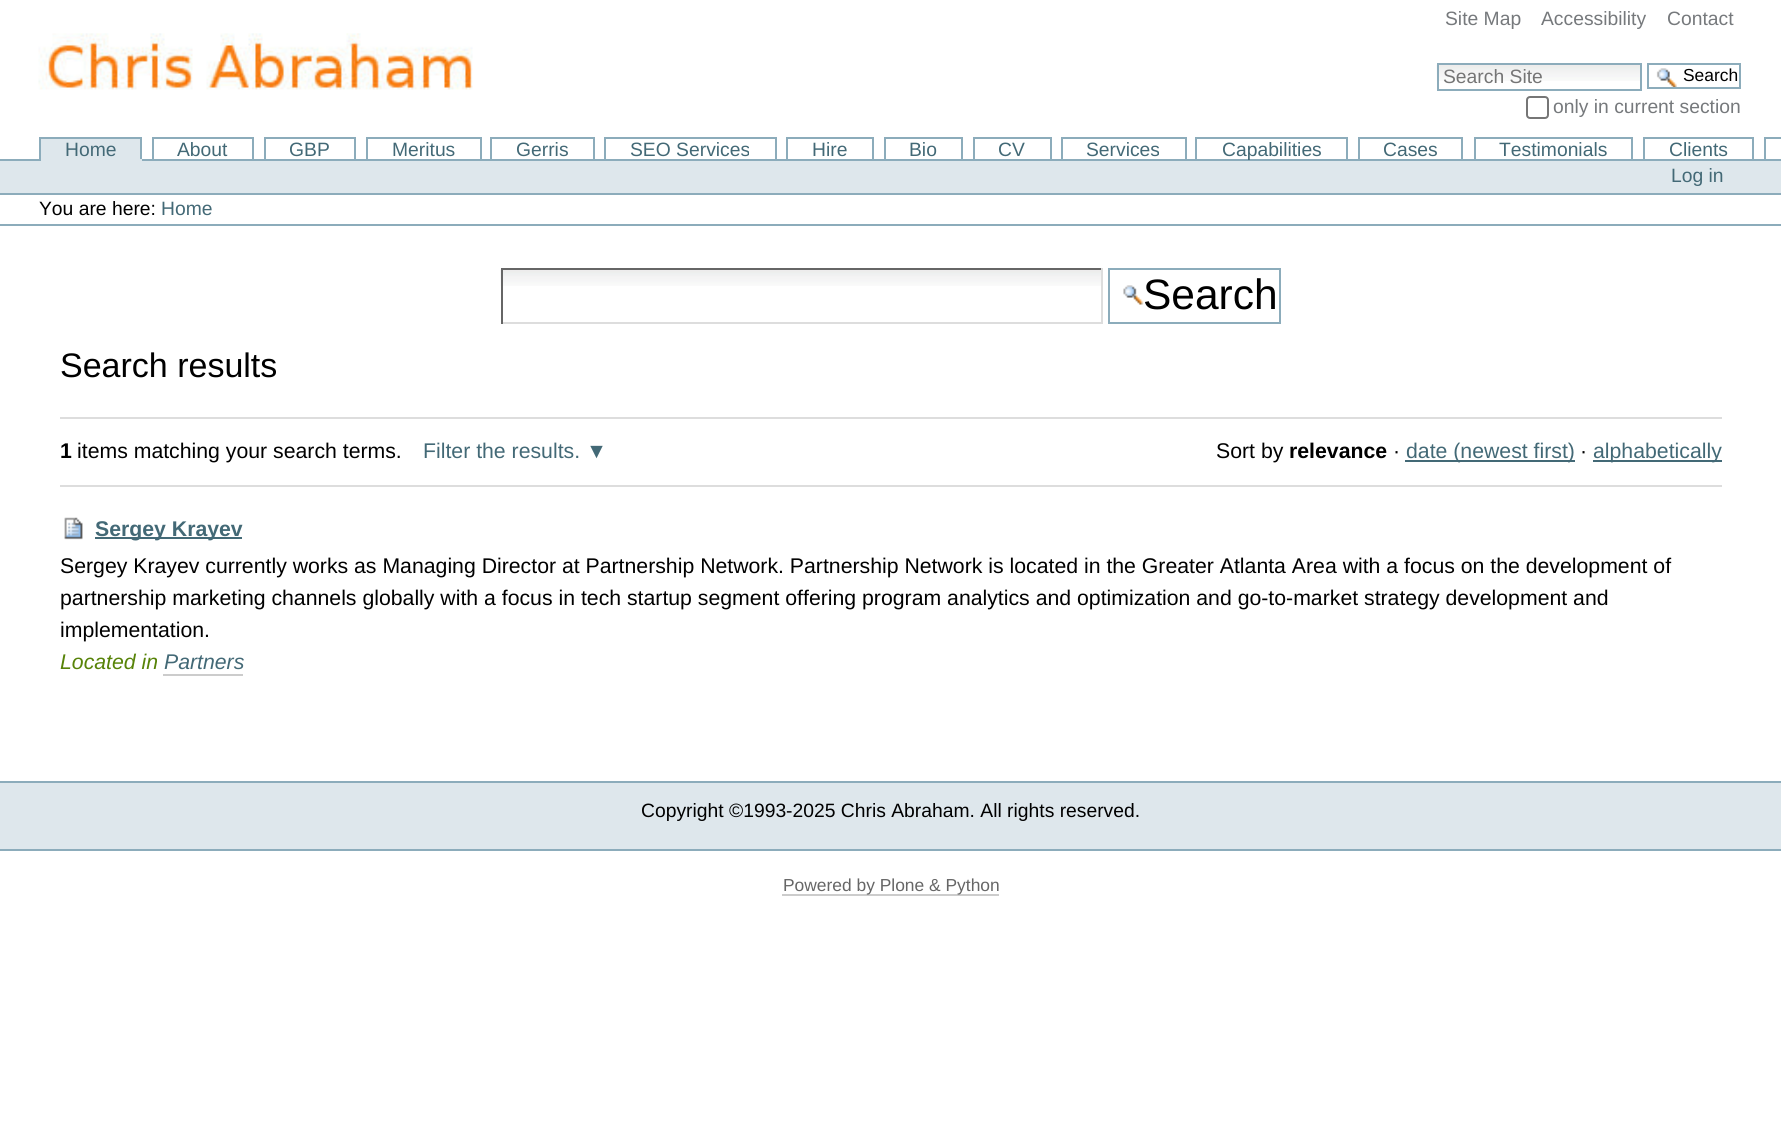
#include <cairo/cairo.h>
#include <math.h>
#include <stddef.h>

static cairo_t *cr;

static void use_color(int r, int g, int b) {
  cairo_set_source_rgb(cr, r / 255.0, g / 255.0, b / 255.0);
}

static void text(double x, double y, const char *s, const char *family, double size, int italic, int bold, int r, int g, int b) {
  cairo_select_font_face(cr, family, italic ? CAIRO_FONT_SLANT_ITALIC : CAIRO_FONT_SLANT_NORMAL,
    bold ? CAIRO_FONT_WEIGHT_BOLD : CAIRO_FONT_WEIGHT_NORMAL);
  cairo_set_font_size(cr, size);
  use_color(r, g, b);
  cairo_move_to(cr, x, y);
  cairo_show_text(cr, s);
}

static void box(double x, double y, double w, double h, int r, int g, int b) {
  use_color(r, g, b);
  cairo_rectangle(cr, x, y, w, h);
  cairo_fill(cr);
}

static void round_rect(double x, double y, double w, double h, double r) {
  cairo_new_sub_path(cr);
  cairo_arc(cr, x + w - r, y + h - r, r, 0, M_PI / 2);
  cairo_arc(cr, x + r, y + h - r, r, M_PI / 2, M_PI);
  cairo_arc(cr, x + r, y + r, r, M_PI, 1.5 * M_PI);
  cairo_arc(cr, x + w - r, y + r, r, 1.5 * M_PI, 2 * M_PI);
  cairo_close_path(cr);
}

static void picture(const char *path, double x, double y, double w, double h) {
  cairo_surface_t *image = cairo_image_surface_create_from_png(path);
  cairo_save(cr);
  cairo_set_source_surface(cr, image, x, y);
  cairo_rectangle(cr, x, y, w, h);
  cairo_fill(cr);
  cairo_restore(cr);
  cairo_surface_destroy(image);
}

static void draw(void) {
  use_color(255, 255, 255);
  cairo_paint(cr);
  picture("img_01.png", 38, 33, 435, 57);
  picture("img_02.png", 1436, 64, 204, 17);
  cairo_rectangle(cr, 1438, 64, 203, 26);
  use_color(140, 172, 187);
  cairo_stroke(cr);
  picture("img_03.png", 1656, 68, 21, 19);
  cairo_rectangle(cr, 1648, 64, 92, 24);
  cairo_stroke(cr);
  round_rect(1527, 97, 21, 21, 3);
  use_color(118, 118, 118);
  cairo_stroke(cr);
  box(1764, 137, 17, 2, 140, 172, 187);
  box(41, 139, 99, 20, 222, 231, 236);
  box(39, 137, 103, 2, 140, 172, 187);
  box(0, 159, 1781, 2, 140, 172, 187);
  box(140, 137, 2, 24, 140, 172, 187);
  box(39, 159, 103, 2, 222, 231, 236);
  box(39, 137, 2, 24, 140, 172, 187);
  box(152, 137, 102, 2, 140, 172, 187);
  box(252, 137, 2, 22, 140, 172, 187);
  box(152, 137, 2, 22, 140, 172, 187);
  box(264, 137, 91, 2, 140, 172, 187);
  box(354, 137, 2, 22, 140, 172, 187);
  box(264, 137, 2, 22, 140, 172, 187);
  box(366, 137, 115, 2, 140, 172, 187);
  box(480, 137, 2, 22, 140, 172, 187);
  box(366, 137, 2, 22, 140, 172, 187);
  box(490, 137, 105, 2, 140, 172, 187);
  box(593, 137, 2, 22, 140, 172, 187);
  box(490, 137, 2, 22, 140, 172, 187);
  box(604, 137, 173, 2, 140, 172, 187);
  box(775, 137, 2, 22, 140, 172, 187);
  box(604, 137, 2, 22, 140, 172, 187);
  box(786, 137, 87, 2, 140, 172, 187);
  box(872, 137, 2, 22, 140, 172, 187);
  box(786, 137, 2, 22, 140, 172, 187);
  box(884, 137, 79, 2, 140, 172, 187);
  box(961, 137, 2, 22, 140, 172, 187);
  box(884, 137, 2, 22, 140, 172, 187);
  box(973, 137, 79, 2, 140, 172, 187);
  box(1050, 137, 2, 22, 140, 172, 187);
  box(973, 137, 2, 22, 140, 172, 187);
  box(1061, 137, 126, 2, 140, 172, 187);
  box(1185, 137, 2, 22, 140, 172, 187);
  box(1061, 137, 2, 22, 140, 172, 187);
  box(1195, 137, 153, 2, 140, 172, 187);
  box(1346, 137, 2, 22, 140, 172, 187);
  box(1195, 137, 2, 22, 140, 172, 187);
  box(1358, 137, 105, 2, 140, 172, 187);
  box(1461, 137, 2, 22, 140, 172, 187);
  box(1358, 137, 2, 22, 140, 172, 187);
  box(1474, 137, 159, 2, 140, 172, 187);
  box(1631, 137, 2, 22, 140, 172, 187);
  box(1474, 137, 2, 22, 140, 172, 187);
  box(1643, 137, 111, 2, 140, 172, 187);
  box(1752, 137, 2, 22, 140, 172, 187);
  box(1643, 137, 2, 22, 140, 172, 187);
  box(1764, 137, 2, 22, 140, 172, 187);
  box(0, 161, 1781, 32, 222, 231, 236);
  box(0, 193, 1781, 2, 140, 172, 187);
  box(0, 224, 1781, 2, 140, 172, 187);
  picture("img_04.png", 500, 269, 601, 17);
  box(501, 268, 602, 2, 102, 102, 102);
  box(1101, 268, 2, 56, 221, 221, 221);
  box(501, 322, 602, 2, 221, 221, 221);
  box(501, 268, 2, 56, 102, 102, 102);
  picture("img_05.png", 1123, 285, 21, 20);
  cairo_rectangle(cr, 1109, 269, 171, 54);
  use_color(140, 172, 187);
  cairo_stroke(cr);
  box(60, 417, 1662, 2, 221, 221, 221);
  box(60, 485, 1662, 2, 221, 221, 221);
  box(1405, 460, 170, 2, 67, 105, 118);
  box(1593, 460, 129, 2, 67, 105, 118);
  picture("img_06.png", 64, 517, 19, 23);
  box(95, 537, 147, 2, 67, 105, 118);
  box(163, 674, 80, 2, 204, 204, 204);
  box(0, 783, 1781, 66, 222, 231, 236);
  box(0, 781, 1781, 2, 140, 172, 187);
  box(0, 849, 1781, 2, 140, 172, 187);
  box(782, 894, 217, 2, 204, 204, 204);
  text(1445, 25, "Site Map", "Liberation Sans", 19.3, 0, 0, 118, 121, 124);
  text(1541, 25, "Accessibility", "Liberation Sans", 19.3, 0, 0, 118, 121, 124);
  text(1667, 25, "Contact", "Liberation Sans", 19.3, 0, 0, 118, 121, 124);
  text(1443, 83, "Search Site", "Liberation Sans", 19.3, 0, 0, 117, 117, 117);
  text(1683, 81, "Search", "Liberation Sans", 17.4, 0, 0, 0, 0, 0);
  text(1553, 113, "only in current section", "Liberation Sans", 19.3, 0, 0, 118, 121, 124);
  text(65, 156, "Home", "Liberation Sans", 19.3, 0, 0, 67, 105, 118);
  text(177, 156, "About", "Liberation Sans", 19.3, 0, 0, 67, 105, 118);
  text(289, 156, "GBP", "Liberation Sans", 19.3, 0, 0, 67, 105, 118);
  text(392, 156, "Meritus", "Liberation Sans", 19.3, 0, 0, 67, 105, 118);
  text(516, 156, "Gerris", "Liberation Sans", 19.3, 0, 0, 67, 105, 118);
  text(630, 156, "SEO Services", "Liberation Sans", 19.3, 0, 0, 67, 105, 118);
  text(812, 156, "Hire", "Liberation Sans", 19.3, 0, 0, 67, 105, 118);
  text(909, 156, "Bio", "Liberation Sans", 19.3, 0, 0, 67, 105, 118);
  text(998, 156, "CV", "Liberation Sans", 19.3, 0, 0, 67, 105, 118);
  text(1086, 156, "Services", "Liberation Sans", 19.3, 0, 0, 67, 105, 118);
  text(1222, 156, "Capabilities", "Liberation Sans", 19.3, 0, 0, 67, 105, 118);
  text(1383, 156, "Cases", "Liberation Sans", 19.3, 0, 0, 67, 105, 118);
  text(1499, 156, "Testimonials", "Liberation Sans", 19.3, 0, 0, 67, 105, 118);
  text(1669, 156, "Clients", "Liberation Sans", 19.3, 0, 0, 67, 105, 118);
  text(1671, 182, "Log in", "Liberation Sans", 19.3, 0, 0, 67, 105, 118);
  text(39, 215, "You are here:", "Liberation Sans", 19.3, 0, 0, 0, 0, 0);
  text(161, 215, "Home", "Liberation Sans", 19.3, 0, 0, 67, 105, 118);
  text(1143, 309, "Search", "Liberation Sans", 42.5, 0, 0, 0, 0, 0);
  text(60, 377, "Search results", "Liberation Sans", 34, 0, 0, 0, 0, 0);
  text(60, 458, "1", "Liberation Sans", 21.25, 0, 1, 0, 0, 0);
  text(77, 458, "items matching your search terms.", "Liberation Sans", 21.25, 0, 0, 0, 0, 0);
  text(423, 458, "Filter the results. ▼", "Liberation Sans", 21.25, 0, 0, 67, 105, 118);
  text(1216, 458, "Sort by", "Liberation Sans", 21.25, 0, 0, 0, 0, 0);
  text(1289, 458, "relevance", "Liberation Sans", 21.25, 0, 1, 0, 0, 0);
  text(1393, 458, "·", "Liberation Sans", 21.25, 0, 0, 0, 0, 0);
  text(1406, 458, "date (newest first)", "Liberation Sans", 21.25, 0, 0, 67, 105, 118);
  text(1580, 458, "·", "Liberation Sans", 21.25, 0, 0, 0, 0, 0);
  text(1593, 458, "alphabetically", "Liberation Sans", 21.25, 0, 0, 67, 105, 118);
  text(95, 536, "Sergey Krayev", "Liberation Sans", 21.25, 0, 1, 67, 105, 118);
  text(60, 573, "Sergey Krayev currently works as Managing Director at Partnership Network. Partnership Network is located in the Greater Atlanta Area with a focus on the development of", "Liberation Sans", 21.25, 0, 0, 0, 0, 0);
  text(60, 605, "partnership marketing channels globally with a focus in tech startup segment offering program analytics and optimization and go-to-market strategy development and", "Liberation Sans", 21.25, 0, 0, 0, 0, 0);
  text(60, 637, "implementation.", "Liberation Sans", 21.25, 0, 0, 0, 0, 0);
  text(60, 669, "Located in", "Liberation Sans", 21.25, 1, 0, 87, 131, 8);
  text(164, 669, "Partners", "Liberation Sans", 21.25, 1, 0, 67, 105, 118);
  text(641, 817, "Copyright ©1993-2025 Chris Abraham. All rights reserved.", "Liberation Sans", 19.3, 0, 0, 0, 0, 0);
  text(783, 891, "Powered by Plone & Python", "Liberation Sans", 17.4, 0, 0, 102, 102, 102);
}

int main(void) {
  cairo_surface_t *surface = cairo_image_surface_create(CAIRO_FORMAT_RGB24, 1781, 1139);
  cr = cairo_create(surface);
  cairo_font_options_t *options = cairo_font_options_create();
  cairo_font_options_set_hint_metrics(options, CAIRO_HINT_METRICS_OFF);
  cairo_font_options_set_hint_style(options, CAIRO_HINT_STYLE_NONE);
  cairo_set_font_options(cr, options);
  cairo_set_miter_limit(cr, 4);
  draw();
  cairo_surface_write_to_png(surface, "out.png");
  cairo_font_options_destroy(options);
  cairo_destroy(cr);
  cairo_surface_destroy(surface);
  return 0;
}
